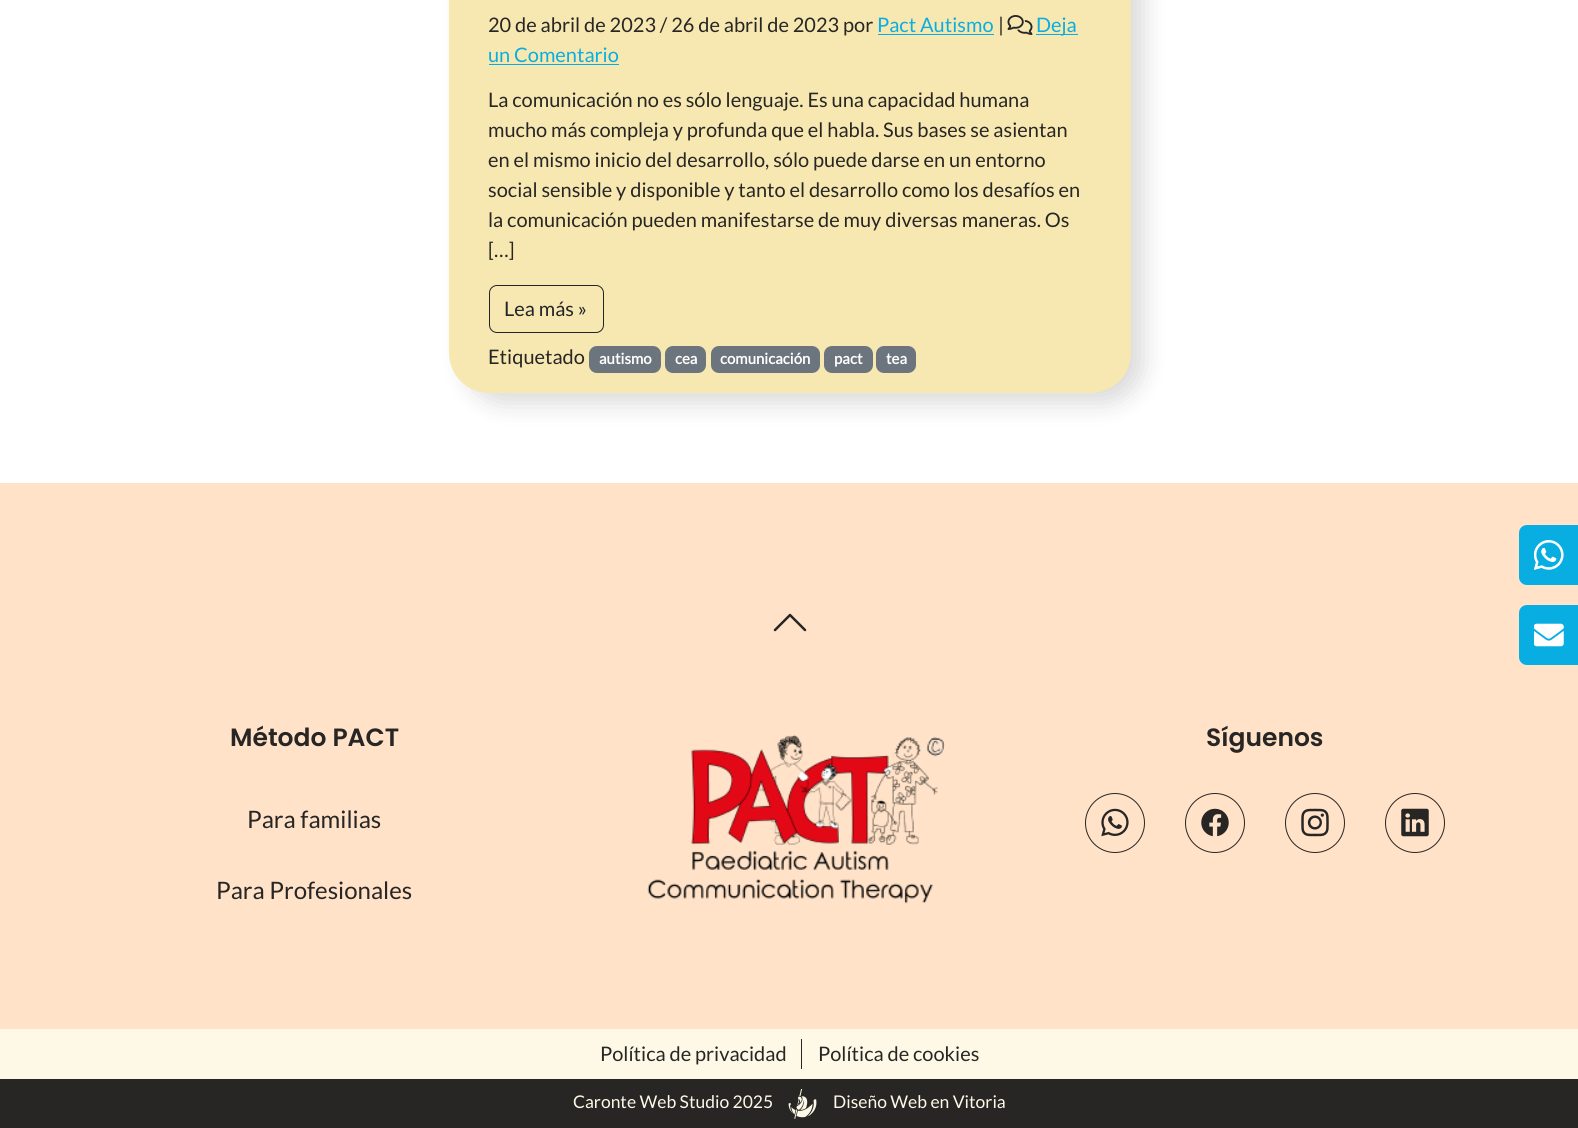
#include <cairo/cairo.h>
#include <math.h>
#include <stddef.h>

static cairo_t *cr;

static void use_color(int r, int g, int b) {
  cairo_set_source_rgb(cr, r / 255.0, g / 255.0, b / 255.0);
}

static void text(double x, double y, const char *s, const char *family, double size, int italic, int bold, int r, int g, int b) {
  cairo_select_font_face(cr, family, italic ? CAIRO_FONT_SLANT_ITALIC : CAIRO_FONT_SLANT_NORMAL,
    bold ? CAIRO_FONT_WEIGHT_BOLD : CAIRO_FONT_WEIGHT_NORMAL);
  cairo_set_font_size(cr, size);
  use_color(r, g, b);
  cairo_move_to(cr, x, y);
  cairo_show_text(cr, s);
}

static void box(double x, double y, double w, double h, int r, int g, int b) {
  use_color(r, g, b);
  cairo_rectangle(cr, x, y, w, h);
  cairo_fill(cr);
}

static void round_rect(double x, double y, double w, double h, double r) {
  cairo_new_sub_path(cr);
  cairo_arc(cr, x + w - r, y + h - r, r, 0, M_PI / 2);
  cairo_arc(cr, x + r, y + h - r, r, M_PI / 2, M_PI);
  cairo_arc(cr, x + r, y + r, r, M_PI, 1.5 * M_PI);
  cairo_arc(cr, x + w - r, y + r, r, 1.5 * M_PI, 2 * M_PI);
  cairo_close_path(cr);
}

static void shadow(double x, double y, double w, double h, double r, double blur, double alpha) {
  cairo_push_group_with_content(cr, CAIRO_CONTENT_ALPHA);
  cairo_set_operator(cr, CAIRO_OPERATOR_SOURCE);
  for (int i = 15; i >= -15 && fmin(w, h) + blur * i / 3 > 0; i -= 2) {
    double e = blur * i / 6;
    cairo_set_source_rgba(cr, 0, 0, 0, alpha * erfc((i - 1) / 8.5) / 2);
    round_rect(x - e, y - e, w + 2 * e, h + 2 * e, fmax(0, fmin(r + e + blur * .6, fmin(w, h) / 2 + e)));
    cairo_fill(cr);
  }
  cairo_pattern_t *soft = cairo_pop_group(cr);
  cairo_mask(cr, soft);
  cairo_pattern_destroy(soft);
}

static void picture(const char *path, double x, double y, double w, double h) {
  cairo_surface_t *image = cairo_image_surface_create_from_png(path);
  cairo_save(cr);
  cairo_set_source_surface(cr, image, x, y);
  cairo_rectangle(cr, x, y, w, h);
  cairo_fill(cr);
  cairo_restore(cr);
  cairo_surface_destroy(image);
}

static void draw(void) {
  use_color(255, 255, 255);
  cairo_paint(cr);
  use_color(0, 0, 0);
  shadow(465, -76, 678, 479, 38, 12.5, 0.15);
  use_color(247, 232, 178);
  round_rect(449, -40, 682, 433, 40);
  cairo_fill(cr);
  box(878, 34, 116, 1, 8, 174, 226);
  picture("img_01.png", 1007, 15, 26, 20);
  box(1036, 34, 42, 1, 8, 174, 226);
  box(489, 64, 130, 1, 8, 174, 226);
  round_rect(489.5, 285.5, 114, 47, 7.5);
  use_color(33, 37, 41);
  cairo_set_line_width(cr, 1);
  cairo_stroke(cr);
  use_color(108, 117, 125);
  round_rect(589, 346, 72, 27, 8);
  cairo_fill(cr);
  round_rect(665, 346, 41, 27, 8);
  cairo_fill(cr);
  round_rect(711, 346, 109, 27, 8);
  cairo_fill(cr);
  round_rect(824, 346, 49, 27, 8);
  cairo_fill(cr);
  round_rect(876, 346, 40, 27, 8);
  cairo_fill(cr);
  box(0, 483, 1578, 546, 255, 226, 200);
  picture("img_02.png", 773, 613, 34, 19);
  picture("img_03.png", 647, 734, 298, 170);
  cairo_arc(cr, 1115, 823, 29.5, 0, 2 * M_PI);
  use_color(39, 38, 36);
  cairo_stroke(cr);
  picture("img_04.png", 1101, 808, 28, 29);
  cairo_arc(cr, 1215, 823, 29.5, 0, 2 * M_PI);
  cairo_stroke(cr);
  picture("img_05.png", 1201, 808, 28, 29);
  cairo_arc(cr, 1315, 823, 29.5, 0, 2 * M_PI);
  cairo_stroke(cr);
  picture("img_06.png", 1301, 808, 28, 29);
  cairo_arc(cr, 1415, 823, 29.5, 0, 2 * M_PI);
  cairo_stroke(cr);
  picture("img_07.png", 1401, 808, 28, 29);
  box(0, 1029, 1578, 50, 254, 249, 231);
  box(801, 1039, 1, 30, 39, 38, 36);
  box(0, 1079, 1578, 49, 39, 38, 36);
  picture("img_08.png", 788, 1089, 29, 30);
  use_color(8, 174, 226);
  cairo_new_path(cr);
  cairo_move_to(cr, 1527, 525);
  cairo_line_to(cr, 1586, 525);
  cairo_line_to(cr, 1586, 585);
  cairo_line_to(cr, 1527, 585);
  cairo_curve_to(cr, 1522.5, 585, 1519, 581.5, 1519, 577);
  cairo_line_to(cr, 1519, 533);
  cairo_curve_to(cr, 1519, 528.5, 1522.5, 525, 1527, 525);
  cairo_close_path(cr);
  cairo_fill(cr);
  picture("img_09.png", 1534, 540, 30, 30);
  cairo_new_path(cr);
  cairo_move_to(cr, 1527, 605);
  cairo_line_to(cr, 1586, 605);
  cairo_line_to(cr, 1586, 665);
  cairo_line_to(cr, 1527, 665);
  cairo_curve_to(cr, 1522.5, 665, 1519, 661.5, 1519, 657);
  cairo_line_to(cr, 1519, 613);
  cairo_curve_to(cr, 1519, 608.5, 1522.5, 605, 1527, 605);
  cairo_close_path(cr);
  cairo_fill(cr);
  picture("img_10.png", 1534, 623, 30, 24);
  text(488, 32, "20 de abril de 2023 / 26 de abril de 2023 por", "Lato", 20, 0, 0, 39, 38, 36);
  text(877, 32, "Pact Autismo", "Lato", 20, 0, 0, 8, 174, 226);
  text(998, 32, "|", "Lato", 20, 0, 0, 39, 38, 36);
  text(1036, 32, "Deja", "Lato", 20, 0, 0, 8, 174, 226);
  text(488, 62, "un Comentario", "Lato", 20, 0, 0, 8, 174, 226);
  text(488, 107, "La comunicación no es sólo lenguaje. Es una capacidad humana", "Lato", 20, 0, 0, 39, 38, 36);
  text(488, 137, "mucho más compleja y profunda que el habla. Sus bases se asientan", "Lato", 20, 0, 0, 39, 38, 36);
  text(488, 167, "en el mismo inicio del desarrollo, sólo puede darse en un entorno", "Lato", 20, 0, 0, 39, 38, 36);
  text(488, 197, "social sensible y disponible y tanto el desarrollo como los desafíos en", "Lato", 20, 0, 0, 39, 38, 36);
  text(488, 227, "la comunicación pueden manifestarse de muy diversas maneras. Os", "Lato", 20, 0, 0, 39, 38, 36);
  text(488, 257, "[…]", "Lato", 20, 0, 0, 39, 38, 36);
  text(504, 316, "Lea más »", "Lato", 20, 0, 0, 33, 37, 41);
  text(488, 364, "Etiquetado", "Lato", 20, 0, 0, 39, 38, 36);
  text(599, 364, "autismo", "Lato", 15, 0, 1, 255, 255, 255);
  text(675, 364, "cea", "Lato", 15, 0, 1, 255, 255, 255);
  text(720, 364, "comunicación", "Lato", 15, 0, 1, 255, 255, 255);
  text(834, 364, "pact", "Lato", 15, 0, 1, 255, 255, 255);
  text(886, 364, "tea", "Lato", 15, 0, 1, 255, 255, 255);
  text(230, 746, "Método PACT", "Poppins SemiBold", 25, 0, 0, 39, 38, 36);
  text(247, 828, "Para familias", "Lato", 24, 0, 0, 39, 38, 36);
  text(216, 899, "Para Profesionales", "Lato", 24, 0, 0, 39, 38, 36);
  text(1206, 746, "Síguenos", "Poppins SemiBold", 25, 0, 0, 39, 38, 36);
  text(600, 1061, "Política de privacidad", "Lato", 20, 0, 0, 39, 38, 36);
  text(818, 1061, "Política de cookies", "Lato", 20, 0, 0, 39, 38, 36);
  text(573, 1108, "Caronte Web Studio 2025", "Lato", 17.5, 0, 0, 254, 249, 231);
  text(833, 1108, "Diseño Web en Vitoria", "Lato", 17.5, 0, 0, 254, 249, 231);
}

int main(void) {
  cairo_surface_t *surface = cairo_image_surface_create(CAIRO_FORMAT_RGB24, 1578, 1128);
  cr = cairo_create(surface);
  cairo_font_options_t *options = cairo_font_options_create();
  cairo_font_options_set_hint_metrics(options, CAIRO_HINT_METRICS_OFF);
  cairo_font_options_set_hint_style(options, CAIRO_HINT_STYLE_NONE);
  cairo_set_font_options(cr, options);
  cairo_set_miter_limit(cr, 4);
  draw();
  cairo_surface_write_to_png(surface, "out.png");
  cairo_font_options_destroy(options);
  cairo_destroy(cr);
  cairo_surface_destroy(surface);
  return 0;
}
